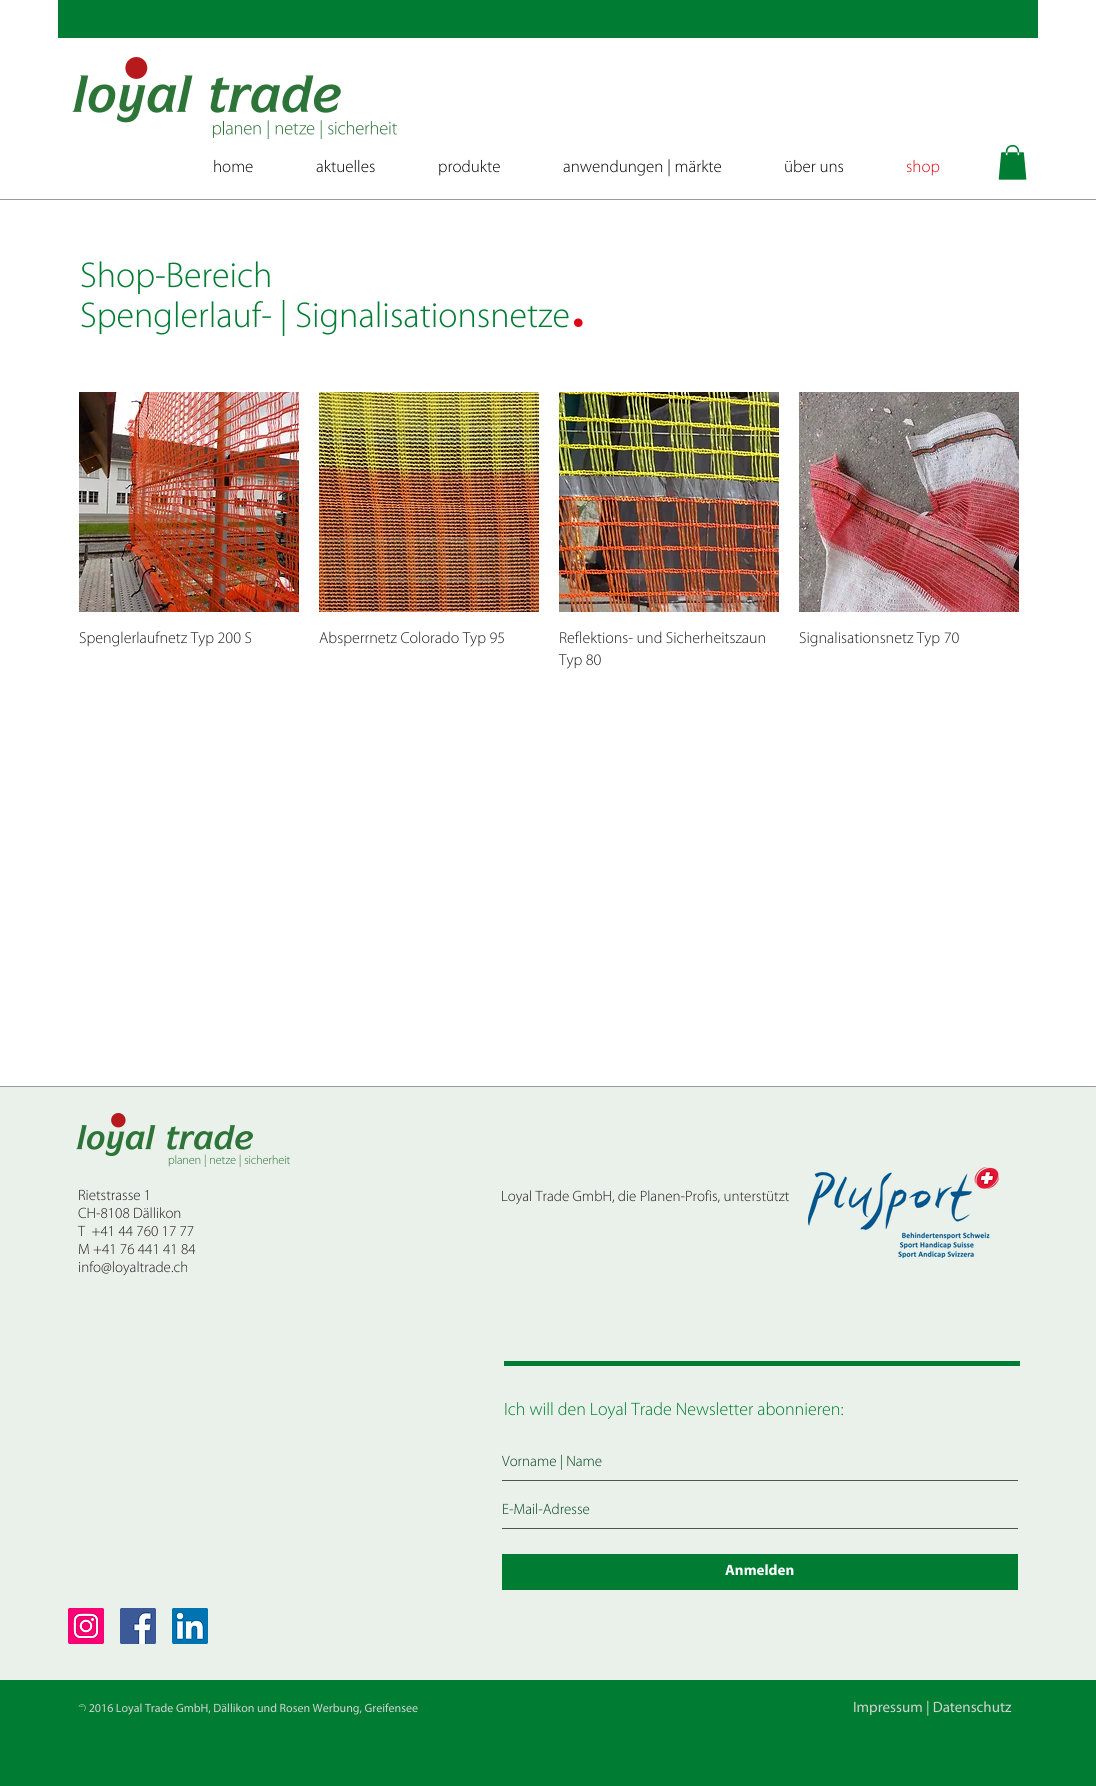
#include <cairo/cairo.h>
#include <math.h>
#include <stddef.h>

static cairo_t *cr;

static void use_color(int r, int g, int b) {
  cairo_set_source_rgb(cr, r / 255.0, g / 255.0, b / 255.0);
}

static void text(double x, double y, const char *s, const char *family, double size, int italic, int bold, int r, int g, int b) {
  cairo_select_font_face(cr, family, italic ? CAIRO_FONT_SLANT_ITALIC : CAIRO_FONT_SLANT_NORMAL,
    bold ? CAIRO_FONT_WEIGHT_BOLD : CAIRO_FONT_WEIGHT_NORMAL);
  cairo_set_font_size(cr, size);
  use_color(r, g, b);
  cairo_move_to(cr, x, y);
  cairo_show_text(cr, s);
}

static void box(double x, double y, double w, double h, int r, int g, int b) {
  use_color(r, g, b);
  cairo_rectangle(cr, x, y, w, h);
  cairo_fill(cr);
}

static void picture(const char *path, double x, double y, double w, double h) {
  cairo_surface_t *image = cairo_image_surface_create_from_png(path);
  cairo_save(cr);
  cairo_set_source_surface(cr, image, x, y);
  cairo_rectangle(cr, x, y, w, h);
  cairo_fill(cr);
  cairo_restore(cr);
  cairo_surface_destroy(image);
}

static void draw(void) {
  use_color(255, 255, 255);
  cairo_paint(cr);
  box(58, 0, 980, 38, 0, 125, 50);
  picture("img_01.png", 72, 57, 325, 82);
  picture("img_02.png", 998, 145, 29, 35);
  box(0, 199, 1096, 1, 153, 153, 153);
  picture("img_03.png", 79, 392, 220, 220);
  picture("img_04.png", 319, 392, 220, 220);
  picture("img_05.png", 559, 392, 220, 220);
  picture("img_06.png", 799, 392, 220, 220);
  box(0, 1087, 1096, 593, 233, 241, 234);
  box(0, 1086, 1096, 1, 153, 153, 153);
  picture("img_07.png", 76, 1113, 214, 54);
  picture("img_08.png", 808, 1167, 191, 91);
  box(504, 1361, 516, 5, 0, 125, 50);
  box(502, 1480, 516, 1, 81, 81, 81);
  box(502, 1528, 516, 1, 81, 81, 81);
  box(502, 1554, 516, 36, 0, 125, 50);
  picture("img_09.png", 68, 1608, 36, 36);
  picture("img_10.png", 120, 1608, 36, 36);
  picture("img_11.png", 172, 1608, 36, 36);
  box(0, 1680, 1096, 106, 0, 125, 50);
  text(213, 172, "home", "Myriad Light", 17, 0, 0, 0, 0, 0);
  text(316, 172, "aktuelles", "Myriad Light", 17, 0, 0, 0, 0, 0);
  text(438, 172, "produkte", "Myriad Light", 17, 0, 0, 0, 0, 0);
  text(563, 172, "anwendungen | märkte", "Myriad Light", 17, 0, 0, 0, 0, 0);
  text(784, 172, "über uns", "Myriad Light", 17, 0, 0, 0, 0, 0);
  text(906, 172, "shop", "Myriad Light", 17, 0, 0, 220, 7, 20);
  text(80, 287, "Shop-Bereich", "Myriad Light", 36, 0, 0, 0, 125, 50);
  text(80, 327, "Spenglerlauf- | Signalisationsnetze", "Myriad Light", 36, 0, 0, 0, 125, 50);
  text(573, 327, ".", "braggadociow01", 36, 0, 0, 220, 7, 20);
  text(79, 643, "Spenglerlaufnetz Typ 200 S", "Myriad Light", 16, 0, 0, 28, 28, 28);
  text(319, 643, "Absperrnetz Colorado Typ 95", "Myriad Light", 16, 0, 0, 28, 28, 28);
  text(559, 643, "Reflektions- und Sicherheitszaun", "Myriad Light", 16, 0, 0, 28, 28, 28);
  text(559, 665, "Typ 80", "Myriad Light", 16, 0, 0, 28, 28, 28);
  text(799, 643, "Signalisationsnetz Typ 70", "Myriad Light", 16, 0, 0, 28, 28, 28);
  text(78, 1200, "Rietstrasse 1", "Myriad Light", 15, 0, 0, 28, 28, 28);
  text(78, 1218, "CH-8108 Dällikon", "Myriad Light", 15, 0, 0, 28, 28, 28);
  text(78, 1236, "T  +41 44 760 17 77", "Myriad Light", 15, 0, 0, 28, 28, 28);
  text(78, 1254, "M +41 76 441 41 84", "Myriad Light", 15, 0, 0, 28, 28, 28);
  text(78, 1272, "info@loyaltrade.ch", "Myriad Light", 15, 0, 0, 28, 28, 28);
  text(501, 1201, "Loyal Trade GmbH, die Planen-Profis, unterstützt", "Myriad Light", 15, 0, 0, 28, 28, 28);
  text(504, 1415, "Ich will den Loyal Trade Newsletter abonnieren:", "Myriad Light", 18, 0, 0, 0, 125, 50);
  text(502, 1466, "Vorname | Name", "Myriad Light", 15, 0, 0, 0, 63, 25);
  text(502, 1514, "E-Mail-Adresse", "Myriad Light", 15, 0, 0, 0, 63, 25);
  text(725, 1575, "Anmelden", "Myriad", 15, 0, 1, 255, 255, 255);
  text(78, 1712, "© 2016 Loyal Trade GmbH, Dällikon und Rosen Werbung, Greifensee", "Myriad", 12, 0, 0, 209, 209, 209);
  text(853, 1712, "Impressum | Datenschutz", "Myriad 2", 15, 0, 0, 209, 209, 209);
  use_color(0, 125, 50);
  cairo_new_path(cr);
  cairo_move_to(cr, 31, 1707);
  cairo_line_to(cr, 31, 1760);
  cairo_line_to(cr, 84, 1760);
  cairo_line_to(cr, 84, 1707);
  cairo_close_path(cr);
  cairo_move_to(cr, 63, 1729);
  cairo_line_to(cr, 59, 1725);
  cairo_line_to(cr, 59, 1747);
  cairo_line_to(cr, 56, 1747);
  cairo_line_to(cr, 56, 1725);
  cairo_line_to(cr, 52, 1729);
  cairo_line_to(cr, 50, 1727);
  cairo_line_to(cr, 58, 1720);
  cairo_line_to(cr, 65, 1727);
  cairo_close_path(cr);
  cairo_fill(cr);
}

int main(void) {
  cairo_surface_t *surface = cairo_image_surface_create(CAIRO_FORMAT_RGB24, 1096, 1786);
  cr = cairo_create(surface);
  cairo_font_options_t *options = cairo_font_options_create();
  cairo_font_options_set_hint_metrics(options, CAIRO_HINT_METRICS_OFF);
  cairo_font_options_set_hint_style(options, CAIRO_HINT_STYLE_NONE);
  cairo_set_font_options(cr, options);
  cairo_set_miter_limit(cr, 4);
  draw();
  cairo_surface_write_to_png(surface, "out.png");
  cairo_font_options_destroy(options);
  cairo_destroy(cr);
  cairo_surface_destroy(surface);
  return 0;
}
